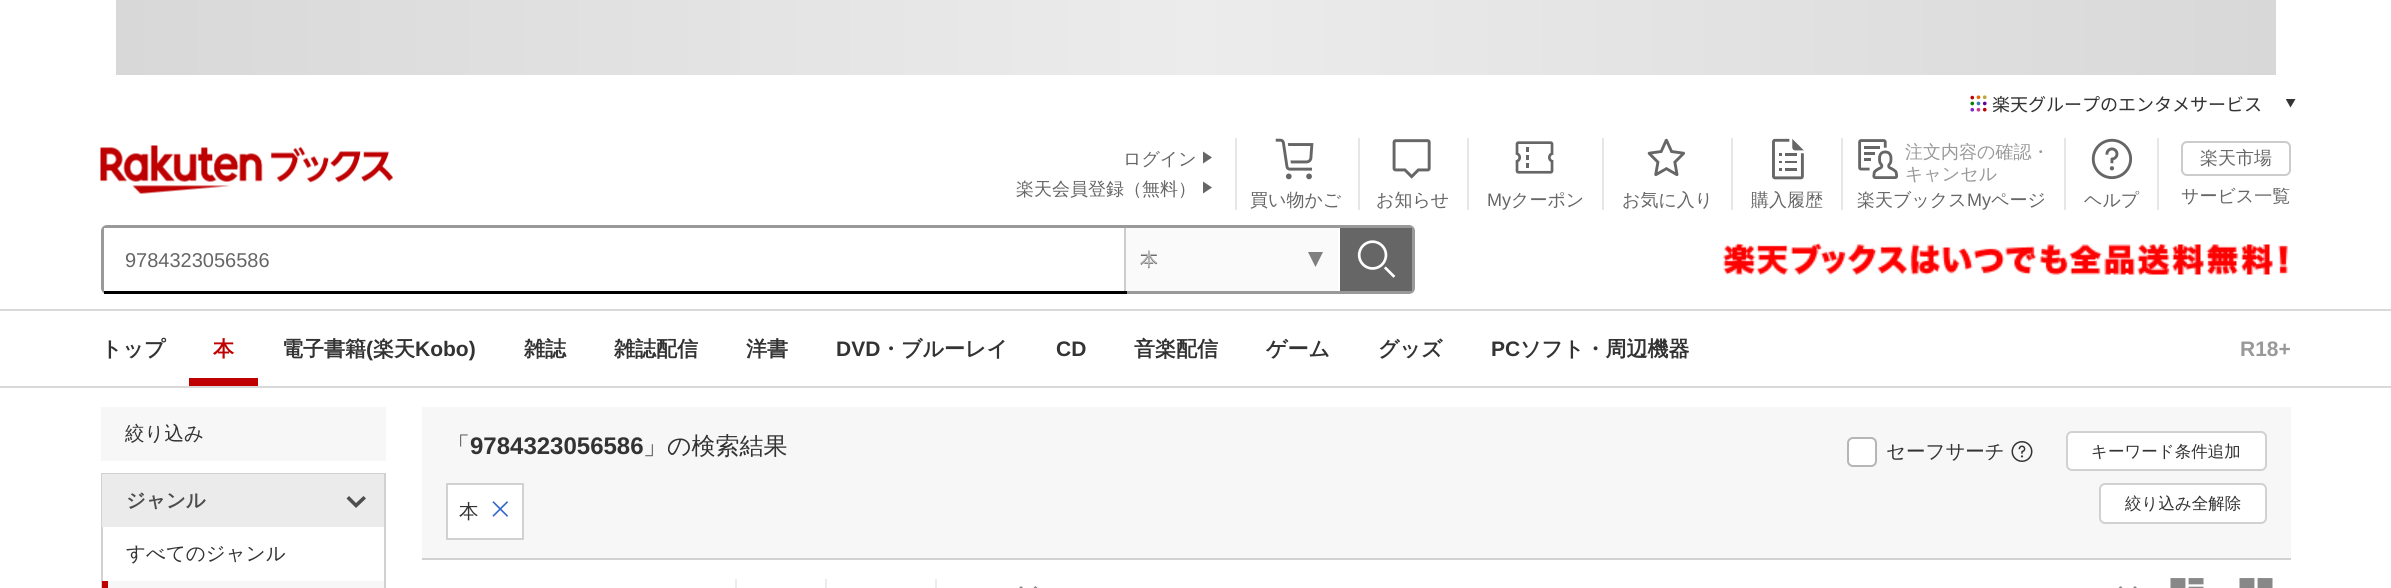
#include <cairo/cairo.h>
#include <math.h>
#include <stddef.h>

static cairo_t *cr;

static void use_color(int r, int g, int b) {
  cairo_set_source_rgb(cr, r / 255.0, g / 255.0, b / 255.0);
}

static void text(double x, double y, const char *s, const char *family, double size, int italic, int bold, int r, int g, int b) {
  cairo_select_font_face(cr, family, italic ? CAIRO_FONT_SLANT_ITALIC : CAIRO_FONT_SLANT_NORMAL,
    bold ? CAIRO_FONT_WEIGHT_BOLD : CAIRO_FONT_WEIGHT_NORMAL);
  cairo_set_font_size(cr, size);
  use_color(r, g, b);
  cairo_move_to(cr, x, y);
  cairo_show_text(cr, s);
}

static void box(double x, double y, double w, double h, int r, int g, int b) {
  use_color(r, g, b);
  cairo_rectangle(cr, x, y, w, h);
  cairo_fill(cr);
}

static void round_rect(double x, double y, double w, double h, double r) {
  cairo_new_sub_path(cr);
  cairo_arc(cr, x + w - r, y + h - r, r, 0, M_PI / 2);
  cairo_arc(cr, x + r, y + h - r, r, M_PI / 2, M_PI);
  cairo_arc(cr, x + r, y + r, r, M_PI, 1.5 * M_PI);
  cairo_arc(cr, x + w - r, y + r, r, 1.5 * M_PI, 2 * M_PI);
  cairo_close_path(cr);
}

static void picture(const char *path, double x, double y, double w, double h) {
  cairo_surface_t *image = cairo_image_surface_create_from_png(path);
  cairo_save(cr);
  cairo_set_source_surface(cr, image, x, y);
  cairo_rectangle(cr, x, y, w, h);
  cairo_fill(cr);
  cairo_restore(cr);
  cairo_surface_destroy(image);
}

static void draw(void) {
  cairo_pattern_t *gradient;
  use_color(255, 255, 255);
  cairo_paint(cr);
  gradient = cairo_pattern_create_linear(116, 38, 2276, 37);
  cairo_pattern_add_color_stop_rgba(gradient, 0, 0.847, 0.847, 0.847, 1);
  cairo_pattern_add_color_stop_rgba(gradient, 0.5, 0.925, 0.925, 0.925, 1);
  cairo_pattern_add_color_stop_rgba(gradient, 1, 0.847, 0.847, 0.847, 1);
  cairo_set_source(cr, gradient);
  cairo_pattern_destroy(gradient);
  cairo_rectangle(cr, 116, 0, 2160, 75);
  cairo_fill(cr);
  picture("img_01.png", 1970, 95, 17, 17);
  use_color(51, 51, 51);
  cairo_new_path(cr);
  cairo_move_to(cr, 2286, 99);
  cairo_line_to(cr, 2295.5, 99);
  cairo_line_to(cr, 2290.5, 107.5);
  cairo_line_to(cr, 2286, 99.5);
  cairo_close_path(cr);
  cairo_fill(cr);
  box(0, 386, 2391, 2, 217, 217, 217);
  picture("img_02.png", 100, 145, 293, 49);
  use_color(102, 102, 102);
  cairo_new_path(cr);
  cairo_move_to(cr, 1203, 163.5);
  cairo_line_to(cr, 1203, 151.5);
  cairo_line_to(cr, 1212, 157.5);
  cairo_close_path(cr);
  cairo_fill(cr);
  cairo_new_path(cr);
  cairo_move_to(cr, 1203, 193.5);
  cairo_line_to(cr, 1203, 181.5);
  cairo_line_to(cr, 1212, 187.5);
  cairo_close_path(cr);
  cairo_fill(cr);
  box(1235, 138, 2, 72, 230, 230, 230);
  picture("img_03.png", 1275, 138, 39, 42);
  box(1358, 138, 2, 72, 230, 230, 230);
  picture("img_04.png", 1392, 139, 39, 40);
  box(1467, 138, 2, 72, 230, 230, 230);
  picture("img_05.png", 1515, 141, 39, 33);
  box(1602, 138, 2, 72, 230, 230, 230);
  picture("img_06.png", 1647, 138, 38, 39);
  box(1731, 138, 2, 72, 230, 230, 230);
  picture("img_07.png", 1772, 138, 32, 42);
  box(1841, 138, 2, 72, 230, 230, 230);
  picture("img_08.png", 1858, 139, 40, 40);
  box(2064, 138, 2, 72, 230, 230, 230);
  picture("img_09.png", 2091, 138, 42, 42);
  box(2157, 138, 2, 72, 230, 230, 230);
  round_rect(2182, 142, 108, 33, 5);
  use_color(204, 204, 204);
  cairo_stroke(cr);
  round_rect(102.5, 226.5, 1311, 66, 4.5);
  use_color(153, 153, 153);
  cairo_set_line_width(cr, 3);
  cairo_stroke(cr);
  box(1340, 228, 72, 63, 102, 102, 102);
  picture("img_10.png", 1357, 240, 39, 38);
  box(104, 228, 3, 63, 255, 255, 255);
  box(104, 291, 1023, 3, 0, 0, 0);
  box(1126, 228, 212, 63, 250, 250, 250);
  box(1124, 228, 2, 63, 204, 204, 204);
  use_color(127, 127, 127);
  cairo_new_path(cr);
  cairo_move_to(cr, 1308, 252);
  cairo_line_to(cr, 1323, 252);
  cairo_line_to(cr, 1315.5, 267);
  cairo_close_path(cr);
  cairo_fill(cr);
  picture("img_11.png", 1723, 243, 565, 33);
  box(0, 309, 2391, 2, 217, 217, 217);
  box(189, 378, 69, 8, 191, 0, 0);
  box(101, 407, 285, 54, 247, 247, 247);
  cairo_rectangle(cr, 102, 474, 283, 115);
  use_color(209, 209, 209);
  cairo_set_line_width(cr, 2);
  cairo_stroke(cr);
  box(102, 474, 282, 53, 235, 235, 235);
  use_color(77, 77, 77);
  cairo_new_path(cr);
  cairo_move_to(cr, 356, 508);
  cairo_line_to(cr, 346.5, 498.5);
  cairo_line_to(cr, 349, 496);
  cairo_line_to(cr, 356, 503);
  cairo_line_to(cr, 363.5, 496);
  cairo_line_to(cr, 366, 498.5);
  cairo_close_path(cr);
  cairo_fill(cr);
  box(102, 581, 282, 7, 247, 247, 247);
  box(102, 581, 6, 7, 191, 0, 0);
  box(422, 407, 1869, 151, 247, 247, 247);
  use_color(255, 255, 255);
  round_rect(1848, 438, 28, 28, 5);
  cairo_fill_preserve(cr);
  use_color(182, 182, 182);
  cairo_stroke(cr);
  picture("img_12.png", 2011, 441, 22, 21);
  use_color(255, 255, 255);
  round_rect(2067, 432, 199, 38, 5);
  cairo_fill_preserve(cr);
  use_color(209, 209, 209);
  cairo_stroke(cr);
  use_color(255, 255, 255);
  cairo_rectangle(cr, 447, 484, 76, 55);
  cairo_fill_preserve(cr);
  use_color(209, 209, 209);
  cairo_stroke(cr);
  picture("img_13.png", 492, 501, 16, 16);
  use_color(255, 255, 255);
  round_rect(2100, 484, 166, 39, 5);
  cairo_fill_preserve(cr);
  use_color(209, 209, 209);
  cairo_stroke(cr);
  box(422, 558, 1869, 2, 209, 209, 209);
  box(735, 579, 2, 9, 236, 236, 236);
  box(825, 579, 2, 9, 236, 236, 236);
  box(935, 579, 2, 9, 236, 236, 236);
  use_color(136, 136, 136);
  cairo_new_path(cr);
  cairo_move_to(cr, 1028, 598);
  cairo_line_to(cr, 1018.5, 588.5);
  cairo_line_to(cr, 1021, 586);
  cairo_line_to(cr, 1028, 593);
  cairo_line_to(cr, 1035.5, 586);
  cairo_line_to(cr, 1038, 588.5);
  cairo_close_path(cr);
  cairo_fill(cr);
  cairo_new_path(cr);
  cairo_move_to(cr, 2128, 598);
  cairo_line_to(cr, 2118, 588.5);
  cairo_line_to(cr, 2120.5, 586);
  cairo_line_to(cr, 2128, 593);
  cairo_line_to(cr, 2135, 586);
  cairo_line_to(cr, 2137.5, 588.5);
  cairo_close_path(cr);
  cairo_fill(cr);
  picture("img_14.png", 2170, 578, 34, 10);
  picture("img_15.png", 2239, 578, 34, 10);
  text(1992, 111, "楽天グループのエンタメサービス", "Noto Sans JP", 18, 0, 0, 51, 51, 51);
  text(1123, 165, "ログイン", "WenQuanYi Zen Hei Medium", 18, 0, 0, 102, 102, 102);
  text(1016, 195, "楽天会員登録（無料）", "WenQuanYi Zen Hei Medium", 18, 0, 0, 102, 102, 102);
  text(1250, 206, "買い物かご", "WenQuanYi Zen Hei Medium", 18, 0, 0, 102, 102, 102);
  text(1376, 206, "お知らせ", "WenQuanYi Zen Hei Medium", 18, 0, 0, 102, 102, 102);
  text(1487, 206, "My", "Liberation Sans", 18, 0, 0, 102, 102, 102);
  text(1511, 206, "クーポン", "WenQuanYi Zen Hei Medium", 18, 0, 0, 102, 102, 102);
  text(1622, 206, "お気に入り", "WenQuanYi Zen Hei Medium", 18, 0, 0, 102, 102, 102);
  text(1751, 206, "購入履歴", "WenQuanYi Zen Hei Medium", 18, 0, 0, 102, 102, 102);
  text(1905, 158, "注文内容の確認・", "WenQuanYi Zen Hei Medium", 18, 0, 0, 153, 153, 153);
  text(1905, 180, "キャンセル", "WenQuanYi Zen Hei Medium", 18, 0, 0, 153, 153, 153);
  text(1857, 206, "楽天ブックス", "WenQuanYi Zen Hei Medium", 18, 0, 0, 102, 102, 102);
  text(1967, 206, "My", "Liberation Sans", 18, 0, 0, 102, 102, 102);
  text(1991, 206, "ページ", "WenQuanYi Zen Hei Medium", 18, 0, 0, 102, 102, 102);
  text(2084, 206, "ヘルプ", "WenQuanYi Zen Hei Medium", 18, 0, 0, 102, 102, 102);
  text(2200, 164, "楽天市場", "WenQuanYi Zen Hei Medium", 18, 0, 0, 102, 102, 102);
  text(2181, 202, "サービス一覧", "WenQuanYi Zen Hei Medium", 18, 0, 0, 102, 102, 102);
  text(125, 267, "9784323056586", "Liberation Sans", 20, 0, 0, 102, 102, 102);
  text(1140, 266, "本", "WenQuanYi Zen Hei Medium", 18, 0, 0, 102, 102, 102);
  text(1140, 265, "本", "WenQuanYi Zen Hei Medium", 18, 0, 0, 188, 188, 188);
  text(101, 356, "トップ", "WenQuanYi Zen Hei", 21, 0, 1, 51, 51, 51);
  text(213, 356, "本", "WenQuanYi Zen Hei", 21, 0, 1, 191, 0, 0);
  text(282, 356, "電子書籍", "WenQuanYi Zen Hei", 21, 0, 1, 51, 51, 51);
  text(366, 356, "(", "Liberation Sans", 21, 0, 1, 51, 51, 51);
  text(373, 356, "楽天", "WenQuanYi Zen Hei", 21, 0, 1, 51, 51, 51);
  text(415, 356, "Kobo)", "Liberation Sans", 21, 0, 1, 51, 51, 51);
  text(524, 356, "雑誌", "WenQuanYi Zen Hei", 21, 0, 1, 51, 51, 51);
  text(614, 356, "雑誌配信", "WenQuanYi Zen Hei", 21, 0, 1, 51, 51, 51);
  text(746, 356, "洋書", "WenQuanYi Zen Hei", 21, 0, 1, 51, 51, 51);
  text(836, 356, "DVD", "Liberation Sans", 21, 0, 1, 51, 51, 51);
  text(880, 356, "・ブルーレイ", "WenQuanYi Zen Hei", 21, 0, 1, 51, 51, 51);
  text(1056, 356, "CD", "Liberation Sans", 21, 0, 1, 51, 51, 51);
  text(1134, 356, "音楽配信", "WenQuanYi Zen Hei", 21, 0, 1, 51, 51, 51);
  text(1266, 356, "ゲーム", "WenQuanYi Zen Hei", 21, 0, 1, 51, 51, 51);
  text(1378, 356, "グッズ", "WenQuanYi Zen Hei", 21, 0, 1, 51, 51, 51);
  text(1491, 356, "PC", "Liberation Sans", 21, 0, 1, 51, 51, 51);
  text(1520, 356, "ソフト・周辺機器", "WenQuanYi Zen Hei", 21, 0, 1, 51, 51, 51);
  text(2240, 356, "R18+", "Liberation Sans", 21, 0, 1, 153, 153, 153);
  text(125, 440, "絞り込み", "WenQuanYi Zen Hei Medium", 19.5, 0, 0, 51, 51, 51);
  text(126, 507, "ジャンル", "WenQuanYi Zen Hei", 19.5, 0, 1, 77, 77, 77);
  text(126, 560, "すべてのジャンル", "WenQuanYi Zen Hei Medium", 19.5, 0, 0, 51, 51, 51);
  text(446, 454, "「", "WenQuanYi Zen Hei Medium", 24, 0, 0, 51, 51, 51);
  text(470, 454, "9784323056586", "Liberation Sans", 24, 0, 1, 51, 51, 51);
  text(643, 454, "」の検索結果", "WenQuanYi Zen Hei Medium", 24, 0, 0, 51, 51, 51);
  text(1886, 458, "セーフサーチ", "WenQuanYi Zen Hei Medium", 19.5, 0, 0, 51, 51, 51);
  text(2091, 457, "キーワード条件追加", "WenQuanYi Zen Hei Medium", 16.5, 0, 0, 51, 51, 51);
  text(459, 518, "本", "WenQuanYi Zen Hei Medium", 19.5, 0, 0, 51, 51, 51);
  text(2125, 509, "絞り込み全解除", "WenQuanYi Zen Hei Medium", 16.5, 0, 0, 51, 51, 51);
}

int main(void) {
  cairo_surface_t *surface = cairo_image_surface_create(CAIRO_FORMAT_RGB24, 2391, 588);
  cr = cairo_create(surface);
  cairo_font_options_t *options = cairo_font_options_create();
  cairo_font_options_set_hint_metrics(options, CAIRO_HINT_METRICS_OFF);
  cairo_font_options_set_hint_style(options, CAIRO_HINT_STYLE_NONE);
  cairo_set_font_options(cr, options);
  cairo_set_miter_limit(cr, 4);
  draw();
  cairo_surface_write_to_png(surface, "out.png");
  cairo_font_options_destroy(options);
  cairo_destroy(cr);
  cairo_surface_destroy(surface);
  return 0;
}
